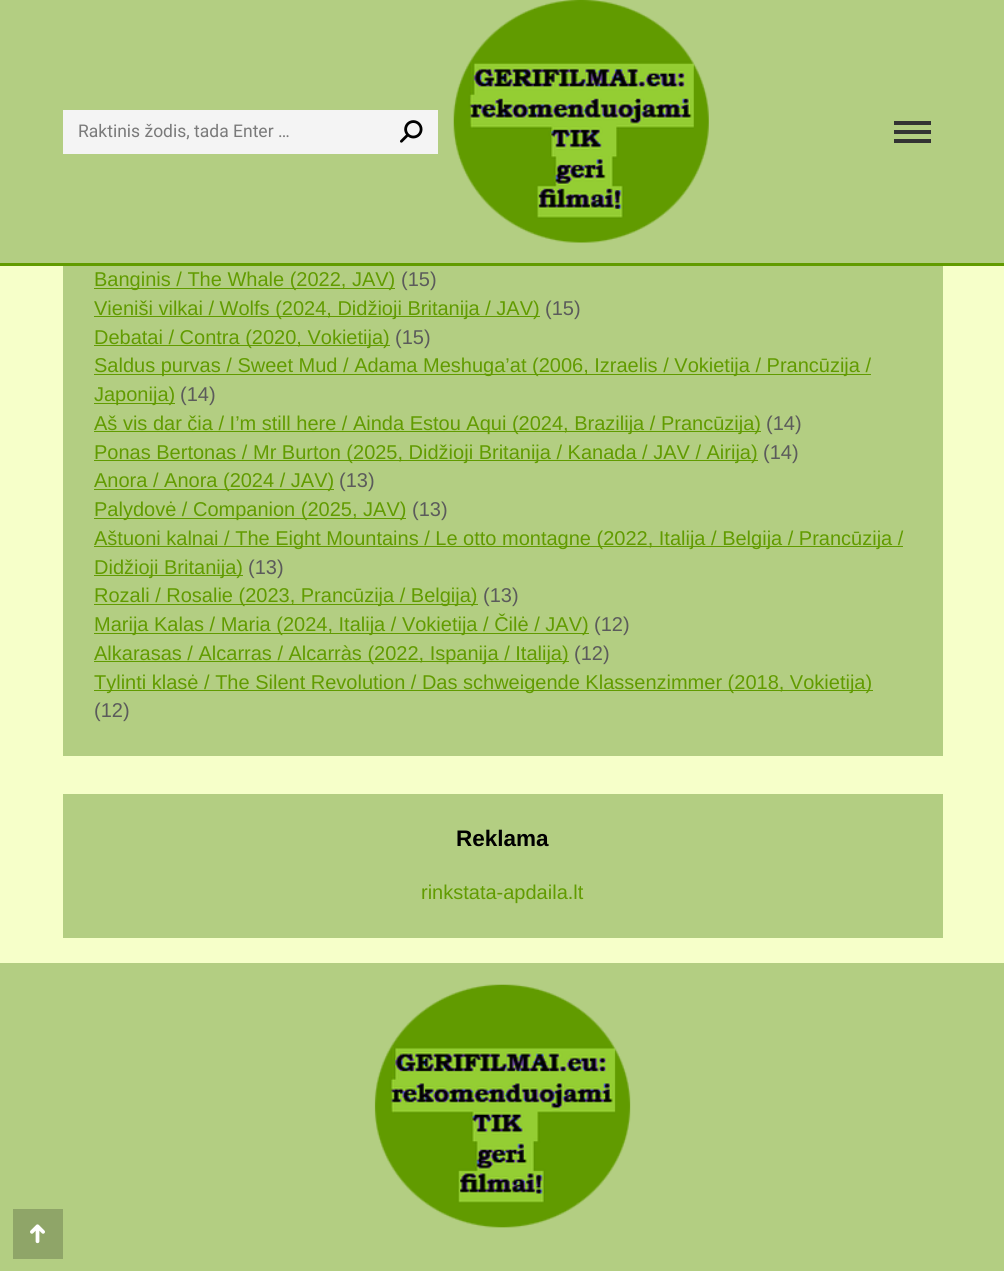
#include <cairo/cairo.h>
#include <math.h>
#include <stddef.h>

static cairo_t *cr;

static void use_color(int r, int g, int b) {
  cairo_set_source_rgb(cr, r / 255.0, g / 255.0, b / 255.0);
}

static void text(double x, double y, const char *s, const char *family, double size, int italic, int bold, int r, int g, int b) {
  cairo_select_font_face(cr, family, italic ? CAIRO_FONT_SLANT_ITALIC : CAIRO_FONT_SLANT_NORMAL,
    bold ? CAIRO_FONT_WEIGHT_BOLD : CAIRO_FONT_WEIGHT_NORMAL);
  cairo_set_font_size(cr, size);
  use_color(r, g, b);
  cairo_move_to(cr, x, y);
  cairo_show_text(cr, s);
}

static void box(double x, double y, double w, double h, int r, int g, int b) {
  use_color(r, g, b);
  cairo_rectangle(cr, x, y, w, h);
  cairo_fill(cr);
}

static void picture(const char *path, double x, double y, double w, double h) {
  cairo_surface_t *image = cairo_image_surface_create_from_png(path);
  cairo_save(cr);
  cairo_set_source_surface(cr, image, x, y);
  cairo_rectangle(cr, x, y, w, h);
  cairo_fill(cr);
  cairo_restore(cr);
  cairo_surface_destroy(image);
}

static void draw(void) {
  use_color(246, 255, 201);
  cairo_paint(cr);
  box(0, 0, 1004, 263, 179, 206, 130);
  box(0, 263, 1004, 3, 97, 155, 0);
  box(63, 110, 375, 44, 244, 244, 244);
  picture("img_01.png", 400, 120, 23, 23);
  picture("img_02.png", 453, 0, 256, 243);
  box(894, 121, 37, 4, 51, 51, 51);
  box(894, 130, 37, 4, 51, 51, 51);
  box(894, 139, 37, 4, 51, 51, 51);
  box(63, 266, 880, 490, 179, 206, 130);
  box(94, 288, 301, 1, 97, 155, 0);
  box(94, 316, 446, 1, 97, 155, 0);
  box(94, 345, 296, 1, 97, 155, 0);
  box(94, 374, 777, 1, 97, 155, 0);
  box(94, 403, 81, 1, 97, 155, 0);
  box(94, 431, 667, 1, 97, 155, 0);
  box(94, 460, 664, 1, 97, 155, 0);
  box(94, 489, 240, 1, 97, 155, 0);
  box(94, 518, 312, 1, 97, 155, 0);
  box(94, 546, 809, 1, 97, 155, 0);
  box(94, 575, 149, 1, 97, 155, 0);
  box(94, 604, 384, 1, 97, 155, 0);
  box(94, 633, 495, 1, 97, 155, 0);
  box(94, 661, 475, 1, 97, 155, 0);
  box(94, 690, 779, 1, 97, 155, 0);
  box(63, 794, 880, 144, 179, 206, 130);
  box(0, 963, 1004, 308, 179, 206, 130);
  picture("img_03.png", 374, 984, 257, 244);
  box(13, 1209, 50, 50, 143, 165, 104);
  picture("img_04.png", 30, 1224, 15, 20);
  text(78, 137, "Raktinis žodis, tada Enter …", "Roboto", 17.5, 0, 0, 122, 122, 122);
  text(94, 286, "Banginis / The Whale (2022, JAV)", "Liberation Sans", 20, 0, 0, 97, 155, 0);
  text(401, 286, "(15)", "Liberation Sans", 20, 0, 0, 91, 91, 91);
  text(94, 315, "Vieniši vilkai / Wolfs (2024, Didžioji Britanija / JAV)", "Liberation Sans", 20, 0, 0, 97, 155, 0);
  text(545, 315, "(15)", "Liberation Sans", 20, 0, 0, 91, 91, 91);
  text(94, 344, "Debatai / Contra (2020, Vokietija)", "Liberation Sans", 20, 0, 0, 97, 155, 0);
  text(395, 344, "(15)", "Liberation Sans", 20, 0, 0, 91, 91, 91);
  text(94, 372, "Saldus purvas / Sweet Mud / Adama Meshuga’at (2006, Izraelis / Vokietija / Prancūzija /", "Liberation Sans", 20, 0, 0, 97, 155, 0);
  text(94, 401, "Japonija)", "Liberation Sans", 20, 0, 0, 97, 155, 0);
  text(180, 401, "(14)", "Liberation Sans", 20, 0, 0, 91, 91, 91);
  text(94, 430, "Aš vis dar čia / I’m still here / Ainda Estou Aqui (2024, Brazilija / Prancūzija)", "Liberation Sans", 20, 0, 0, 97, 155, 0);
  text(766, 430, "(14)", "Liberation Sans", 20, 0, 0, 91, 91, 91);
  text(94, 459, "Ponas Bertonas / Mr Burton (2025, Didžioji Britanija / Kanada / JAV / Airija)", "Liberation Sans", 20, 0, 0, 97, 155, 0);
  text(763, 459, "(14)", "Liberation Sans", 20, 0, 0, 91, 91, 91);
  text(94, 487, "Anora / Anora (2024 / JAV)", "Liberation Sans", 20, 0, 0, 97, 155, 0);
  text(339, 487, "(13)", "Liberation Sans", 20, 0, 0, 91, 91, 91);
  text(94, 516, "Palydovė / Companion (2025, JAV)", "Liberation Sans", 20, 0, 0, 97, 155, 0);
  text(412, 516, "(13)", "Liberation Sans", 20, 0, 0, 91, 91, 91);
  text(94, 545, "Aštuoni kalnai / The Eight Mountains / Le otto montagne (2022, Italija / Belgija / Prancūzija /", "Liberation Sans", 20, 0, 0, 97, 155, 0);
  text(94, 574, "Didžioji Britanija)", "Liberation Sans", 20, 0, 0, 97, 155, 0);
  text(248, 574, "(13)", "Liberation Sans", 20, 0, 0, 91, 91, 91);
  text(94, 602, "Rozali / Rosalie (2023, Prancūzija / Belgija)", "Liberation Sans", 20, 0, 0, 97, 155, 0);
  text(483, 602, "(13)", "Liberation Sans", 20, 0, 0, 91, 91, 91);
  text(94, 631, "Marija Kalas / Maria (2024, Italija / Vokietija / Čilė / JAV)", "Liberation Sans", 20, 0, 0, 97, 155, 0);
  text(594, 631, "(12)", "Liberation Sans", 20, 0, 0, 91, 91, 91);
  text(94, 660, "Alkarasas / Alcarras / Alcarràs (2022, Ispanija / Italija)", "Liberation Sans", 20, 0, 0, 97, 155, 0);
  text(574, 660, "(12)", "Liberation Sans", 20, 0, 0, 91, 91, 91);
  text(94, 689, "Tylinti klasė / The Silent Revolution / Das schweigende Klassenzimmer (2018, Vokietija)", "Liberation Sans", 20, 0, 0, 97, 155, 0);
  text(94, 717, "(12)", "Liberation Sans", 20, 0, 0, 91, 91, 91);
  text(456, 846, "Reklama", "Liberation Sans", 22.5, 0, 1, 0, 0, 0);
  text(421, 899, "rinkstata-apdaila.lt", "Liberation Sans", 20, 0, 0, 97, 155, 0);
}

int main(void) {
  cairo_surface_t *surface = cairo_image_surface_create(CAIRO_FORMAT_RGB24, 1004, 1271);
  cr = cairo_create(surface);
  cairo_font_options_t *options = cairo_font_options_create();
  cairo_font_options_set_hint_metrics(options, CAIRO_HINT_METRICS_OFF);
  cairo_font_options_set_hint_style(options, CAIRO_HINT_STYLE_NONE);
  cairo_set_font_options(cr, options);
  cairo_set_miter_limit(cr, 4);
  draw();
  cairo_surface_write_to_png(surface, "out.png");
  cairo_font_options_destroy(options);
  cairo_destroy(cr);
  cairo_surface_destroy(surface);
  return 0;
}
